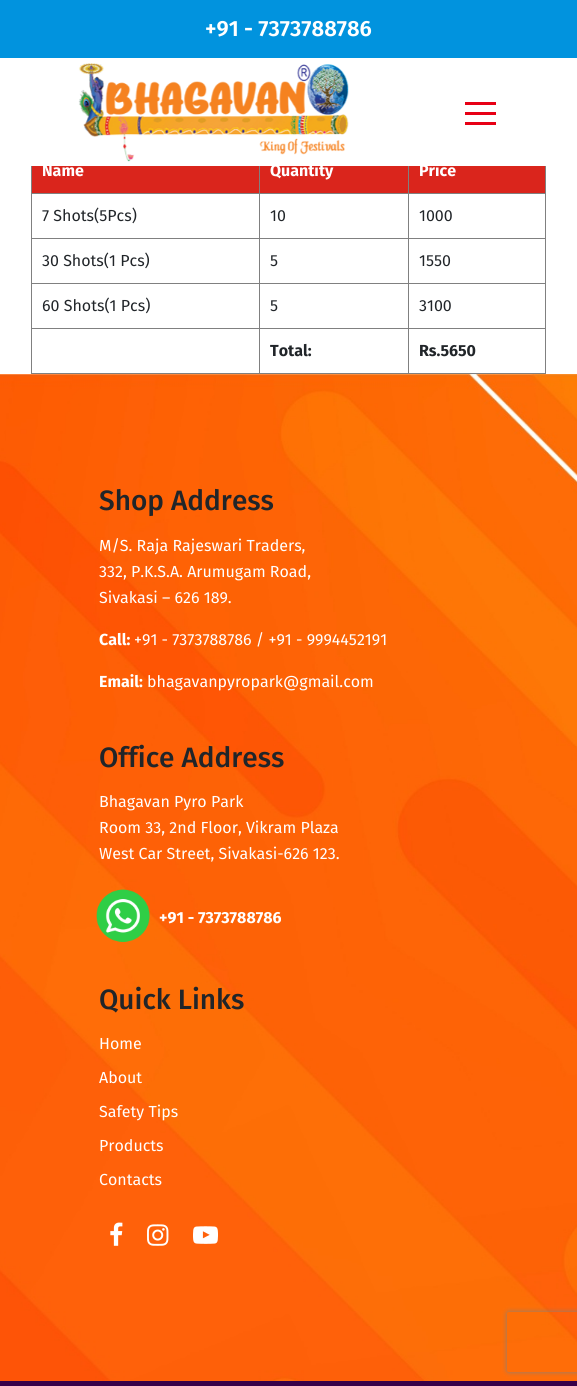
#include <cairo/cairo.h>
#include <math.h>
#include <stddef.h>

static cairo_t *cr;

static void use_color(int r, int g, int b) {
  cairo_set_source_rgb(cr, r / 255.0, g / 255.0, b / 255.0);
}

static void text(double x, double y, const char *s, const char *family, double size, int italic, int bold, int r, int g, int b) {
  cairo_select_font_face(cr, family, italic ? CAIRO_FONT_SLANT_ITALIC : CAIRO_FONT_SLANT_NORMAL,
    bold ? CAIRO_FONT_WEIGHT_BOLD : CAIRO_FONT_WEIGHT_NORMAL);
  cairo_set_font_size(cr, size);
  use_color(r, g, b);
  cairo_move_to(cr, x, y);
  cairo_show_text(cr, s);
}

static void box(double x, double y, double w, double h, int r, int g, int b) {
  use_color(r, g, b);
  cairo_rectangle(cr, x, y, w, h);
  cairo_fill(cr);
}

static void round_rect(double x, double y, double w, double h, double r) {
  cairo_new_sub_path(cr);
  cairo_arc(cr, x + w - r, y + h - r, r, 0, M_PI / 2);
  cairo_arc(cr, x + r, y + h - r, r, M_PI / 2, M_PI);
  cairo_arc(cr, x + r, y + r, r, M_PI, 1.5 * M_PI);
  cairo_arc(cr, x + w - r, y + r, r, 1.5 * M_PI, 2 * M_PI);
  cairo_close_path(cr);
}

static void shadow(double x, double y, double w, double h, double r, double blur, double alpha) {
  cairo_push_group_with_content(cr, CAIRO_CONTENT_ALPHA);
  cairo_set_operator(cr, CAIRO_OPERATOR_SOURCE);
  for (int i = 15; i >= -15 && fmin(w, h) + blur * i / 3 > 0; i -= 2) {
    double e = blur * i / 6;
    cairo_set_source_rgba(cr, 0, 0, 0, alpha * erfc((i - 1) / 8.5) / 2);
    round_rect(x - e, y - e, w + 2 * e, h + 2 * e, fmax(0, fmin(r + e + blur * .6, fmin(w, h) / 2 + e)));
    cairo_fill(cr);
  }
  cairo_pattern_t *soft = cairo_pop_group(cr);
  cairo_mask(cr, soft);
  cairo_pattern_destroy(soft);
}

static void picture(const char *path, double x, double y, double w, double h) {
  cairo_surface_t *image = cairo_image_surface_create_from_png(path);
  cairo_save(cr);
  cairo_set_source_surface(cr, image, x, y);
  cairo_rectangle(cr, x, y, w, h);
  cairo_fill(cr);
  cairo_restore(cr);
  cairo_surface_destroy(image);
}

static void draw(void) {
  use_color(255, 255, 255);
  cairo_paint(cr);
  box(0, 0, 577, 58, 1, 147, 222);
  picture("img_01.png", 78, 63, 271, 99);
  picture("img_02.png", 465, 102, 31, 23);
  box(545, 166, 1, 208, 128, 128, 128);
  box(31, 373, 515, 1, 128, 128, 128);
  box(31, 166, 1, 208, 128, 128, 128);
  box(32, 166, 513, 27, 218, 37, 28);
  box(408, 193, 138, 1, 128, 128, 128);
  box(408, 238, 138, 1, 128, 128, 128);
  box(408, 283, 138, 1, 128, 128, 128);
  box(408, 328, 138, 1, 128, 128, 128);
  box(408, 328, 1, 46, 128, 128, 128);
  box(259, 328, 150, 1, 128, 128, 128);
  box(408, 283, 1, 46, 128, 128, 128);
  box(259, 283, 150, 1, 128, 128, 128);
  box(408, 238, 1, 46, 128, 128, 128);
  box(259, 238, 150, 1, 128, 128, 128);
  box(408, 193, 1, 46, 128, 128, 128);
  box(259, 193, 150, 1, 128, 128, 128);
  box(259, 328, 1, 46, 128, 128, 128);
  box(31, 328, 229, 1, 128, 128, 128);
  box(259, 283, 1, 46, 128, 128, 128);
  box(31, 283, 229, 1, 128, 128, 128);
  box(259, 238, 1, 46, 128, 128, 128);
  box(31, 238, 229, 1, 128, 128, 128);
  box(259, 193, 1, 46, 128, 128, 128);
  box(31, 193, 229, 1, 128, 128, 128);
  box(259, 166, 1, 28, 128, 128, 128);
  box(408, 166, 1, 28, 128, 128, 128);
  picture("img_03.png", 0, 374, 577, 1007);
  picture("img_04.png", 96, 889, 54, 54);
  picture("img_05.png", 110, 1222, 13, 24);
  picture("img_06.png", 147, 1224, 22, 22);
  picture("img_07.png", 193, 1226, 25, 18);
  box(0, 1381, 577, 5, 56, 0, 73);
  cairo_save(cr);
  cairo_set_fill_rule(cr, CAIRO_FILL_RULE_EVEN_ODD);
  cairo_new_path(cr);
  cairo_move_to(cr, 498, 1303);
  cairo_line_to(cr, 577, 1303);
  cairo_line_to(cr, 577, 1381);
  cairo_line_to(cr, 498, 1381);
  cairo_close_path(cr);
  cairo_move_to(cr, 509, 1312);
  cairo_line_to(cr, 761, 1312);
  cairo_curve_to(cr, 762, 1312, 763, 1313, 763, 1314);
  cairo_line_to(cr, 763, 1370);
  cairo_curve_to(cr, 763, 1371, 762, 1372, 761, 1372);
  cairo_line_to(cr, 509, 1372);
  cairo_curve_to(cr, 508, 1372, 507, 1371, 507, 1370);
  cairo_line_to(cr, 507, 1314);
  cairo_curve_to(cr, 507, 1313, 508, 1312, 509, 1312);
  cairo_close_path(cr);
  cairo_clip(cr);
  use_color(128, 128, 128);
  shadow(507, 1312, 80, 60, 2, 2.5, 1);
  cairo_restore(cr);
  text(205, 36, "+91 - 7373788786", "Fira Sans SemiBold", 22, 0, 0, 255, 255, 255);
  text(42, 176, "Name", "Fira Sans", 16, 0, 1, 255, 255, 255);
  text(270, 176, "Quantity", "Fira Sans", 16, 0, 1, 255, 255, 255);
  text(419, 176, "Price", "Fira Sans", 16, 0, 1, 255, 255, 255);
  text(42, 221, "7 Shots(5Pcs)", "Fira Sans", 16, 0, 0, 33, 37, 41);
  text(270, 221, "10", "Fira Sans", 16, 0, 0, 33, 37, 41);
  text(419, 221, "1000", "Fira Sans", 16, 0, 0, 33, 37, 41);
  text(42, 266, "30 Shots(1 Pcs)", "Fira Sans", 16, 0, 0, 33, 37, 41);
  text(270, 266, "5", "Fira Sans", 16, 0, 0, 33, 37, 41);
  text(419, 266, "1550", "Fira Sans", 16, 0, 0, 33, 37, 41);
  text(42, 311, "60 Shots(1 Pcs)", "Fira Sans", 16, 0, 0, 33, 37, 41);
  text(270, 311, "5", "Fira Sans", 16, 0, 0, 33, 37, 41);
  text(419, 311, "3100", "Fira Sans", 16, 0, 0, 33, 37, 41);
  text(270, 356, "Total:", "Fira Sans", 16, 0, 1, 33, 37, 41);
  text(419, 356, "Rs.5650", "Fira Sans", 16, 0, 1, 33, 37, 41);
  text(99, 510, "Shop Address", "Fira Sans Medium", 28, 0, 0, 33, 37, 41);
  text(99, 551, "M/S. Raja Rajeswari Traders,", "Fira Sans", 16, 0, 0, 255, 255, 255);
  text(99, 577, "332, P.K.S.A. Arumugam Road,", "Fira Sans", 16, 0, 0, 255, 255, 255);
  text(99, 603, "Sivakasi – 626 189.", "Fira Sans", 16, 0, 0, 255, 255, 255);
  text(99, 645, "Call:", "Fira Sans", 16, 0, 1, 255, 255, 255);
  text(134, 645, "+91 - 7373788786 / +91 - 9994452191", "Fira Sans", 16, 0, 0, 255, 255, 255);
  text(99, 687, "Email:", "Fira Sans", 16, 0, 1, 255, 255, 255);
  text(147, 687, "bhagavanpyropark@gmail.com", "Fira Sans", 16, 0, 0, 255, 255, 255);
  text(99, 767, "Office Address", "Fira Sans Medium", 28, 0, 0, 33, 37, 41);
  text(99, 807, "Bhagavan Pyro Park", "Fira Sans", 16, 0, 0, 255, 255, 255);
  text(99, 833, "Room 33, 2nd Floor, Vikram Plaza", "Fira Sans", 16, 0, 0, 255, 255, 255);
  text(99, 859, "West Car Street, Sivakasi-626 123.", "Fira Sans", 16, 0, 0, 255, 255, 255);
  text(159, 923, "+91 - 7373788786", "Fira Sans", 16, 0, 1, 255, 255, 255);
  text(99, 1009, "Quick Links", "Fira Sans Medium", 28, 0, 0, 33, 37, 41);
  text(99, 1049, "Home", "Fira Sans", 16, 0, 0, 255, 255, 255);
  text(99, 1083, "About", "Fira Sans", 16, 0, 0, 255, 255, 255);
  text(99, 1117, "Safety Tips", "Fira Sans", 16, 0, 0, 255, 255, 255);
  text(99, 1151, "Products", "Fira Sans", 16, 0, 0, 255, 255, 255);
  text(99, 1185, "Contacts", "Fira Sans", 16, 0, 0, 255, 255, 255);
}

int main(void) {
  cairo_surface_t *surface = cairo_image_surface_create(CAIRO_FORMAT_RGB24, 577, 1386);
  cr = cairo_create(surface);
  cairo_font_options_t *options = cairo_font_options_create();
  cairo_font_options_set_hint_metrics(options, CAIRO_HINT_METRICS_OFF);
  cairo_font_options_set_hint_style(options, CAIRO_HINT_STYLE_NONE);
  cairo_set_font_options(cr, options);
  cairo_set_miter_limit(cr, 4);
  draw();
  cairo_surface_write_to_png(surface, "out.png");
  cairo_font_options_destroy(options);
  cairo_destroy(cr);
  cairo_surface_destroy(surface);
  return 0;
}
